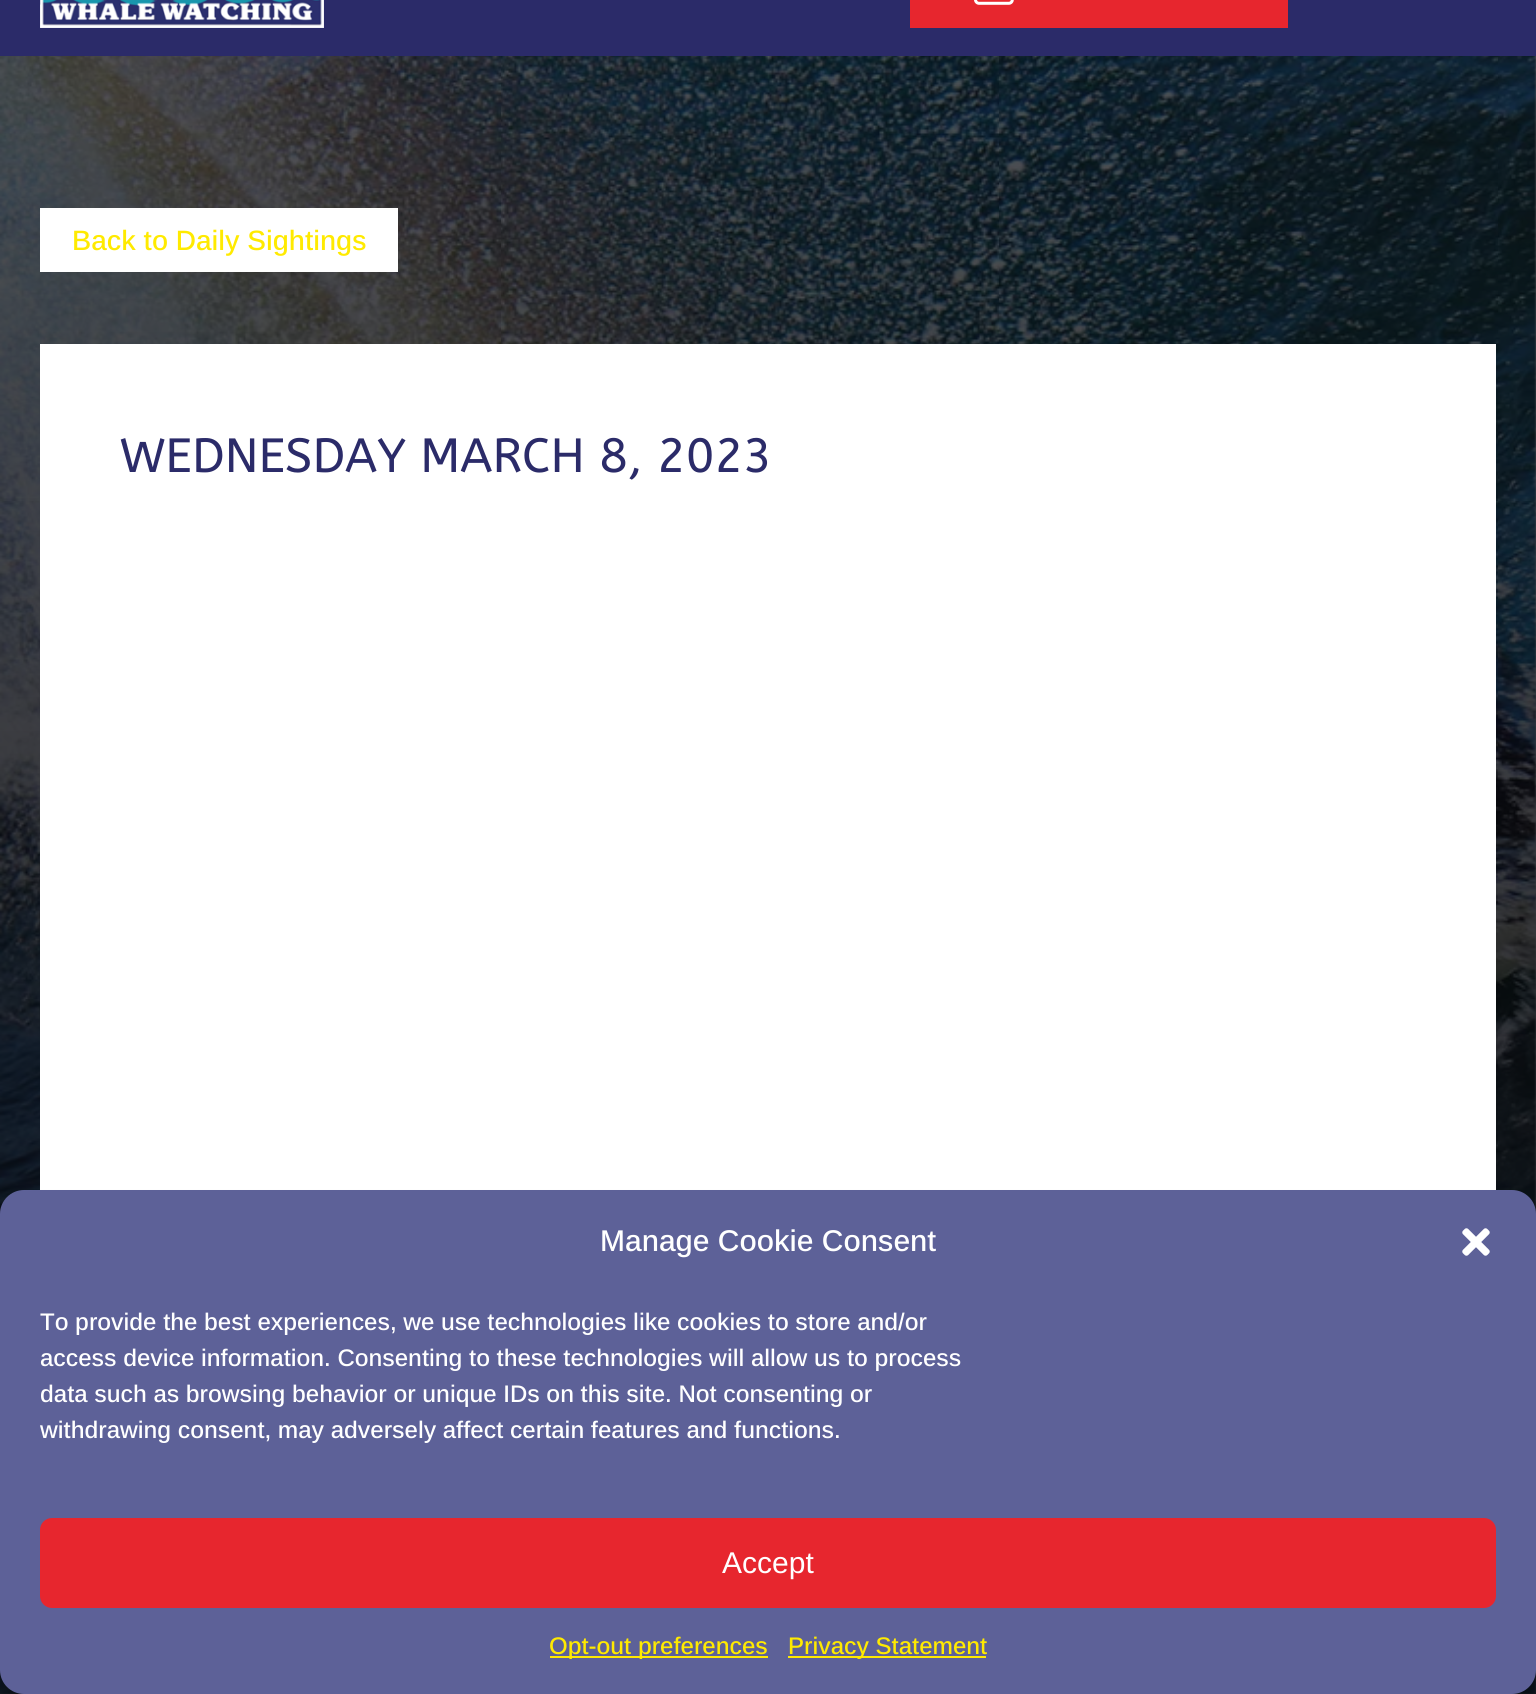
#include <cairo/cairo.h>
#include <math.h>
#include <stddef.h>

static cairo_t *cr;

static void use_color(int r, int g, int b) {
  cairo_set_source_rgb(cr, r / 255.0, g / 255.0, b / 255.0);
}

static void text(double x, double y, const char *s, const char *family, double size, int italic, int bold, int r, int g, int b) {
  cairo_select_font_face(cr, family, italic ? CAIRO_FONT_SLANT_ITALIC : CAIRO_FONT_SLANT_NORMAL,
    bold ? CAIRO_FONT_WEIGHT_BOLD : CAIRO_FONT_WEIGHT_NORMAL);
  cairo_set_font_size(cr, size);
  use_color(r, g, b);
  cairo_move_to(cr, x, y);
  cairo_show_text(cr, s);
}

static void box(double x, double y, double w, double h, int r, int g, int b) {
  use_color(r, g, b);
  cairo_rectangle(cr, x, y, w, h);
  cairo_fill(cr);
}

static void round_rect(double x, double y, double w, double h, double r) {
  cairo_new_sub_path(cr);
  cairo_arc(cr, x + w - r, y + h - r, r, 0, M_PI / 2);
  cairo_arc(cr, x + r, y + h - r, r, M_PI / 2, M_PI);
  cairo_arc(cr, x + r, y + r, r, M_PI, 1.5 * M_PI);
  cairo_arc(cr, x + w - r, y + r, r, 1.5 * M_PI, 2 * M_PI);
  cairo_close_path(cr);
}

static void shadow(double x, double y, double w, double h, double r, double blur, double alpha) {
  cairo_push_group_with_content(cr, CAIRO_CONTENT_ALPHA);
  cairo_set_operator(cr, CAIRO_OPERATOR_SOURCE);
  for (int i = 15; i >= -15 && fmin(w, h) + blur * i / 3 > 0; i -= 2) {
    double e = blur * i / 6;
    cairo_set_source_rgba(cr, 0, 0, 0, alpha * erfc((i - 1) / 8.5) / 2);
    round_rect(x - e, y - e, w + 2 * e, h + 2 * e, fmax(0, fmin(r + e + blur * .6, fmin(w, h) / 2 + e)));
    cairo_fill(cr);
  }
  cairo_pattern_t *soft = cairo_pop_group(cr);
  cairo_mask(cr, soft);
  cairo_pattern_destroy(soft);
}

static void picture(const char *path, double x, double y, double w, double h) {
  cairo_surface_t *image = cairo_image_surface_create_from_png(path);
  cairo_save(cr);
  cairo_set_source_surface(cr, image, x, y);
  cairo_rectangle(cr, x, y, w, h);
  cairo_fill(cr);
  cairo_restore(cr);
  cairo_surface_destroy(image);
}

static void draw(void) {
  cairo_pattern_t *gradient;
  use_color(255, 255, 255);
  cairo_paint(cr);
  box(0, 0, 1536, 56, 43, 43, 105);
  picture("img_01.png", 40, 0, 284, 28);
  box(910, 0, 378, 28, 231, 38, 46);
  picture("img_02.png", 974, 0, 40, 5);
  picture("img_03.png", 0, 56, 1536, 1638);
  gradient = cairo_pattern_create_linear(768, 1694, 768, 0);
  cairo_pattern_add_color_stop_rgba(gradient, 0, 0.031, 0.035, 0.055, 0.9);
  cairo_pattern_add_color_stop_rgba(gradient, 1, 0.031, 0.035, 0.055, 0.7);
  cairo_set_source(cr, gradient);
  cairo_pattern_destroy(gradient);
  cairo_rectangle(cr, 0, 56, 1536, 1638);
  cairo_fill(cr);
  box(40, 208, 358, 64, 255, 255, 255);
  box(40, 344, 1456, 846, 255, 255, 255);
  use_color(0, 0, 0);
  shadow(0, 1202, 1536, 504, 24, 6, 0.23);
  use_color(93, 97, 152);
  round_rect(0, 1190, 1536, 504, 24);
  cairo_fill(cr);
  picture("img_04.png", 1462, 1228, 28, 28);
  use_color(231, 38, 46);
  round_rect(41, 1519, 1454, 88, 11);
  cairo_fill_preserve(cr);
  cairo_stroke(cr);
  box(550, 1656, 218, 2, 255, 234, 0);
  box(788, 1656, 198, 2, 255, 234, 0);
  text(72, 250, "Back to Daily Sightings", "Arimo Medium", 28, 0, 0, 255, 234, 0);
  text(120, 472, "WEDNESDAY MARCH 8, 2023", "ABeeZee", 48, 0, 0, 43, 43, 105);
  text(600, 1251, "Manage Cookie Consent", "Arimo Medium", 30, 0, 0, 255, 255, 255);
  text(40, 1330, "To provide the best experiences, we use technologies like cookies to store and/or", "Arimo Medium", 24, 0, 0, 255, 255, 255);
  text(40, 1366, "access device information. Consenting to these technologies will allow us to process", "Arimo Medium", 24, 0, 0, 255, 255, 255);
  text(40, 1402, "data such as browsing behavior or unique IDs on this site. Not consenting or", "Arimo Medium", 24, 0, 0, 255, 255, 255);
  text(40, 1438, "withdrawing consent, may adversely affect certain features and functions.", "Arimo Medium", 24, 0, 0, 255, 255, 255);
  text(722, 1573, "Accept", "Liberation Sans", 30, 0, 0, 255, 255, 255);
  text(549, 1654, "Opt-out preferences", "Arimo Medium", 24, 0, 0, 255, 234, 0);
  text(788, 1654, "Privacy Statement", "Arimo Medium", 24, 0, 0, 255, 234, 0);
}

int main(void) {
  cairo_surface_t *surface = cairo_image_surface_create(CAIRO_FORMAT_RGB24, 1536, 1694);
  cr = cairo_create(surface);
  cairo_font_options_t *options = cairo_font_options_create();
  cairo_font_options_set_hint_metrics(options, CAIRO_HINT_METRICS_OFF);
  cairo_font_options_set_hint_style(options, CAIRO_HINT_STYLE_NONE);
  cairo_set_font_options(cr, options);
  cairo_set_miter_limit(cr, 4);
  draw();
  cairo_surface_write_to_png(surface, "out.png");
  cairo_font_options_destroy(options);
  cairo_destroy(cr);
  cairo_surface_destroy(surface);
  return 0;
}
